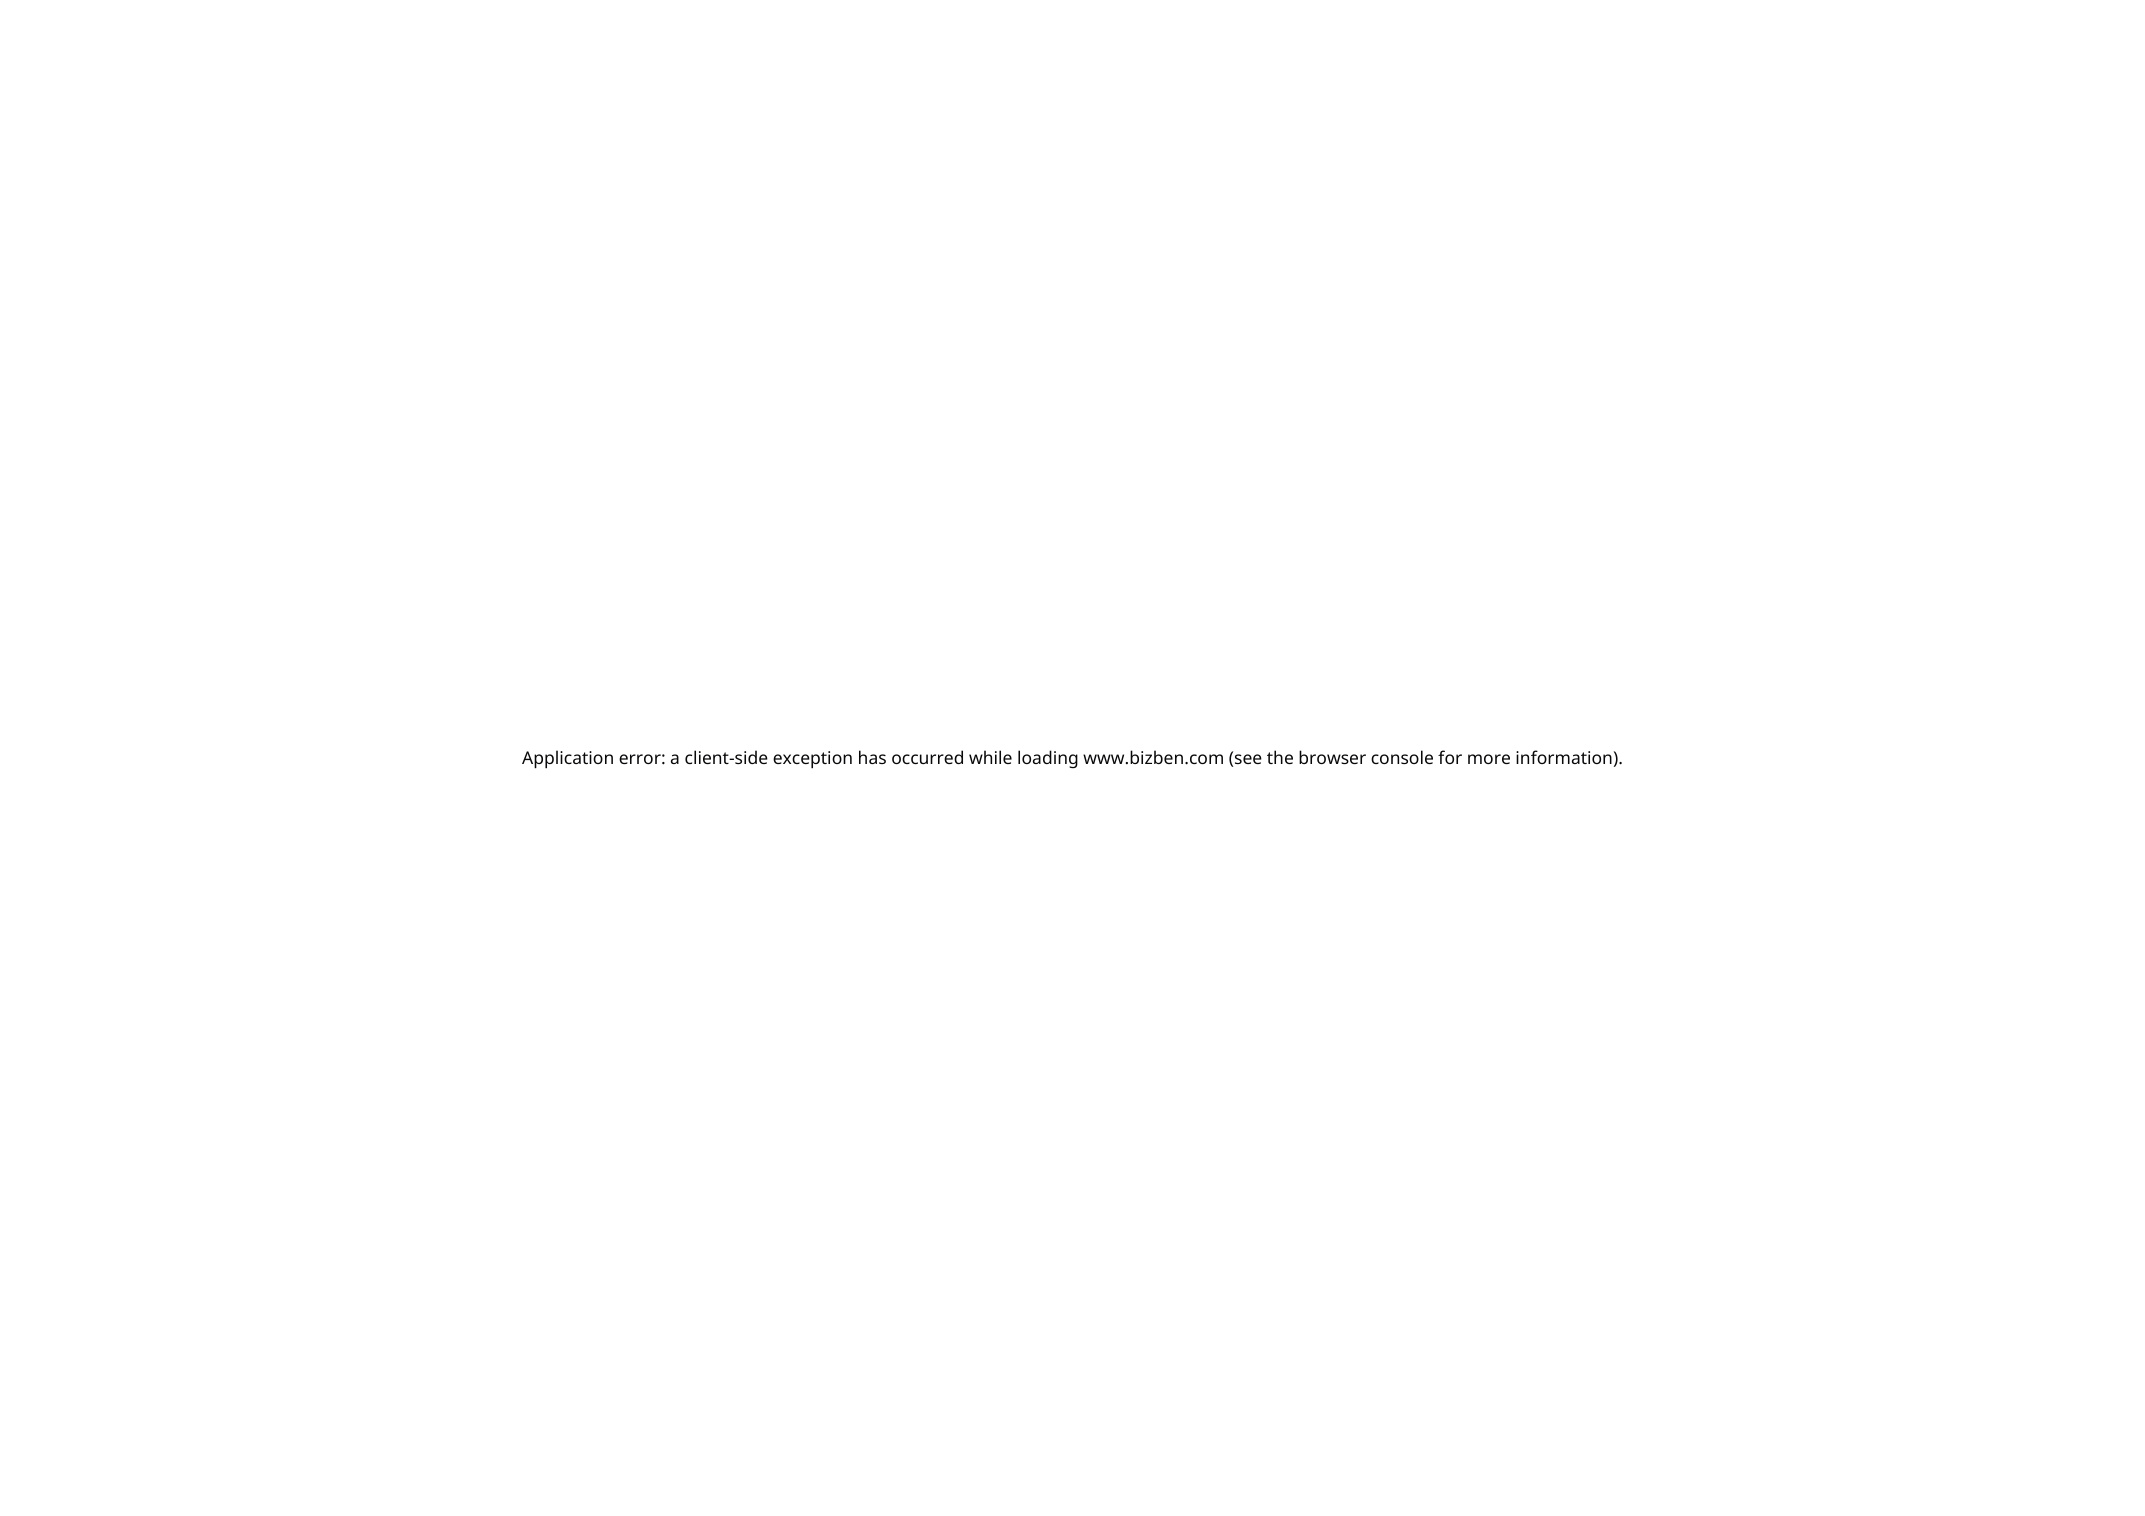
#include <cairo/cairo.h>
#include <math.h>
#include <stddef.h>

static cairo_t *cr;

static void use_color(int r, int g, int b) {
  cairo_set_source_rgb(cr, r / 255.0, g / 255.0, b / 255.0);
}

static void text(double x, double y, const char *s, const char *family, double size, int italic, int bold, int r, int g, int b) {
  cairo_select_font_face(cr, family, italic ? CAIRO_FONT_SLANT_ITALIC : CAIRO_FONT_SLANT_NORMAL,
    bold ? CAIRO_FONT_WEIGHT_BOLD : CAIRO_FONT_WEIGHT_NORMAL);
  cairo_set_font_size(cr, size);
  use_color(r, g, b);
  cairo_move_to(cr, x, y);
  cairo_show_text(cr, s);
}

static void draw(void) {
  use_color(255, 255, 255);
  cairo_paint(cr);
  text(522, 764, "Application error: a client-side exception has occurred while loading www.bizben.com (see the browser console for more information).", "Noto Sans", 17.5, 0, 0, 9, 9, 11);
}

int main(void) {
  cairo_surface_t *surface = cairo_image_surface_create(CAIRO_FORMAT_RGB24, 2145, 1516);
  cr = cairo_create(surface);
  cairo_font_options_t *options = cairo_font_options_create();
  cairo_font_options_set_hint_metrics(options, CAIRO_HINT_METRICS_OFF);
  cairo_font_options_set_hint_style(options, CAIRO_HINT_STYLE_NONE);
  cairo_set_font_options(cr, options);
  cairo_set_miter_limit(cr, 4);
  draw();
  cairo_surface_write_to_png(surface, "out.png");
  cairo_font_options_destroy(options);
  cairo_destroy(cr);
  cairo_surface_destroy(surface);
  return 0;
}
